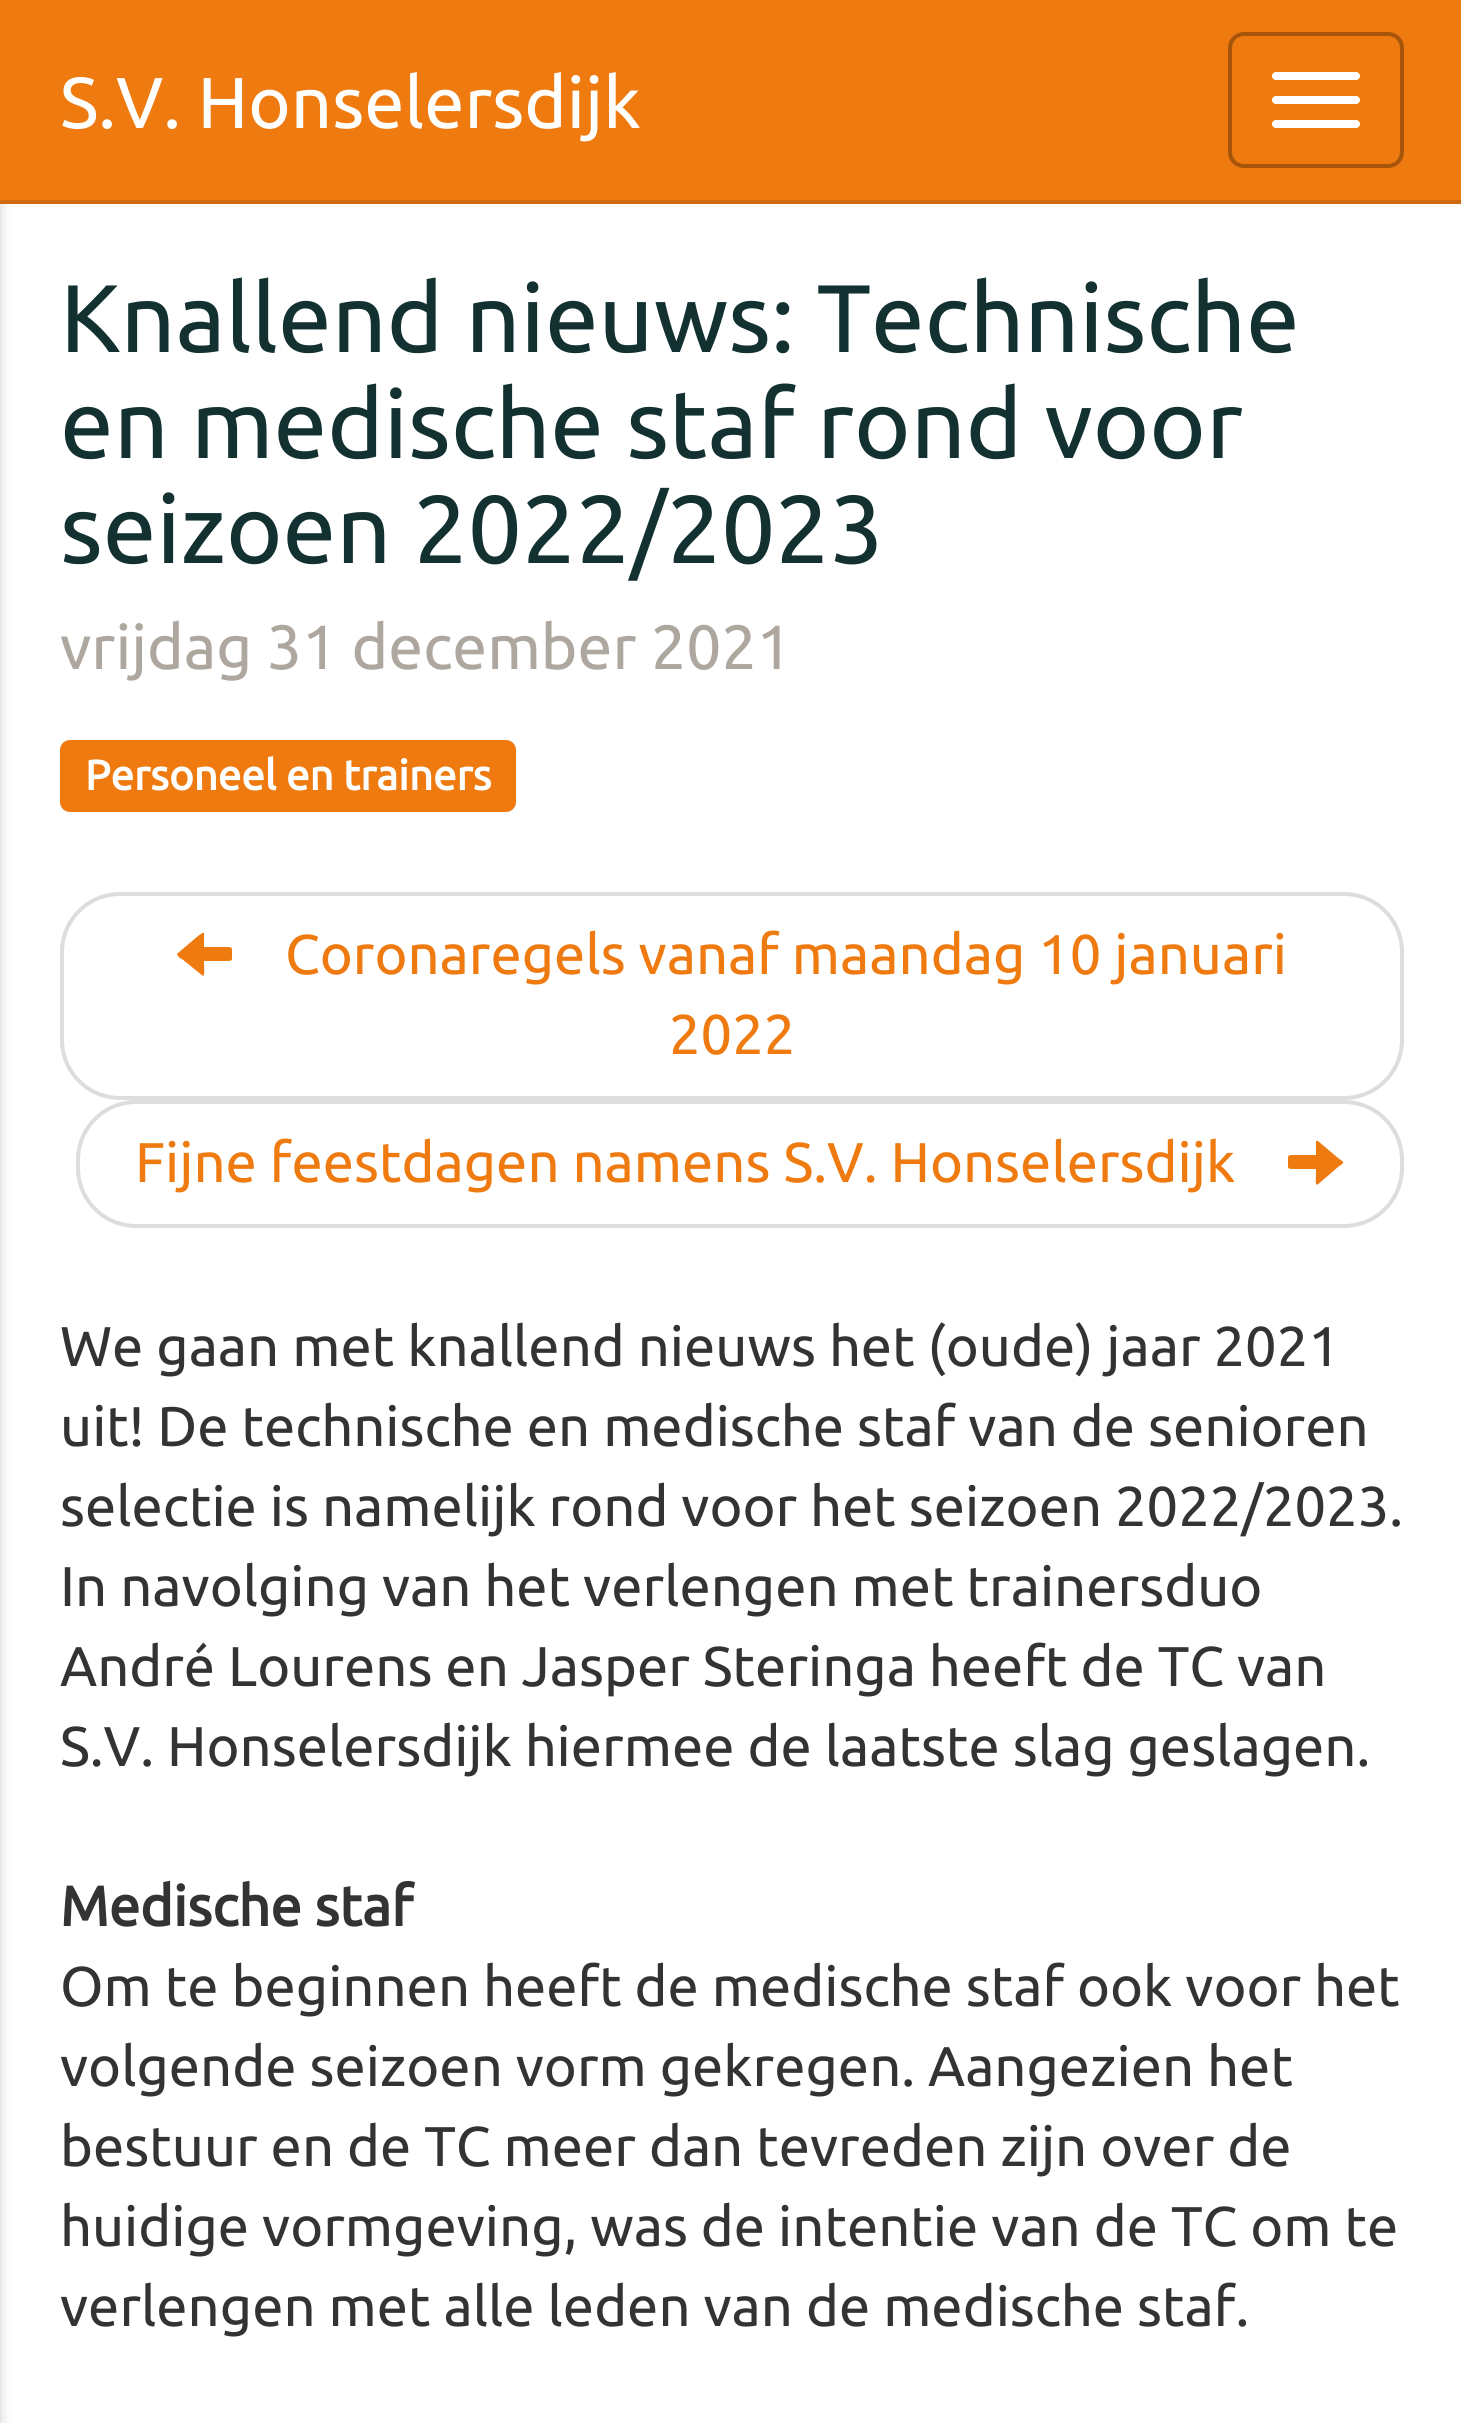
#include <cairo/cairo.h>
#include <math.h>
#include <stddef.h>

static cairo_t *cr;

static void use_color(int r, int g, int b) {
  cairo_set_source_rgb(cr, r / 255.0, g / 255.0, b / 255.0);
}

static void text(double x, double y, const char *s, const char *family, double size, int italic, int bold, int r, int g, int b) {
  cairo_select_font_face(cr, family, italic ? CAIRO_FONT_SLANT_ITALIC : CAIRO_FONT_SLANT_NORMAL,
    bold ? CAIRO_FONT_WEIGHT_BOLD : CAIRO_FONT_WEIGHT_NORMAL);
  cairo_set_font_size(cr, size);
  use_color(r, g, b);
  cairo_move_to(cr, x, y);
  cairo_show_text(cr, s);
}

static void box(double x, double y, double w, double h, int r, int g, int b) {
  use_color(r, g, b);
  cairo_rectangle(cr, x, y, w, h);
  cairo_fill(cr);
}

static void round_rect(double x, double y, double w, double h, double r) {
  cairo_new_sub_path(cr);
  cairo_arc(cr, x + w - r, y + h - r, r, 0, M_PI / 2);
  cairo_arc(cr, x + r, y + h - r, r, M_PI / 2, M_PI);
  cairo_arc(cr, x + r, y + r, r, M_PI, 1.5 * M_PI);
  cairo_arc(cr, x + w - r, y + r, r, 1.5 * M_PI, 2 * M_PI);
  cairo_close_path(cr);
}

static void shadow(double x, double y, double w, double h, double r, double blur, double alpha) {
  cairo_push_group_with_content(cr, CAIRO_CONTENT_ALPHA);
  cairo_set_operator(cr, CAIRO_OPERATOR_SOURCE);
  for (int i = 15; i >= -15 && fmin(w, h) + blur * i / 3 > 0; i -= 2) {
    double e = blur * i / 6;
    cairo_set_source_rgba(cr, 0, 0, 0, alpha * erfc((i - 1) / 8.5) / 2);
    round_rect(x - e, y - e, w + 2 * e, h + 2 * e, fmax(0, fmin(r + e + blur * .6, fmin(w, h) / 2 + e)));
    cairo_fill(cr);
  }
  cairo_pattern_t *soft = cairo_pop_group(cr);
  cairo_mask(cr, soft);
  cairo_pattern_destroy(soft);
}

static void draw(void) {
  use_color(255, 255, 255);
  cairo_paint(cr);
  use_color(50, 50, 50);
  shadow(-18, 204, 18, 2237, 0, 6, 0.25);
  box(0, 0, 1461, 200, 238, 122, 16);
  box(0, 200, 1461, 4, 207, 106, 14);
  round_rect(1230, 34, 172, 132, 14);
  use_color(166, 85, 11);
  cairo_set_line_width(cr, 4);
  cairo_stroke(cr);
  use_color(255, 255, 255);
  round_rect(1272, 72, 88, 8, 4);
  cairo_fill(cr);
  round_rect(1272, 96, 88, 8, 4);
  cairo_fill(cr);
  round_rect(1272, 120, 88, 8, 4);
  cairo_fill(cr);
  use_color(238, 122, 16);
  round_rect(60, 740, 456, 72, 10);
  cairo_fill(cr);
  round_rect(62, 894, 1340, 204, 58);
  use_color(221, 221, 221);
  cairo_stroke(cr);
  use_color(238, 122, 16);
  cairo_new_path(cr);
  cairo_move_to(cr, 178, 953);
  cairo_line_to(cr, 198, 936);
  cairo_curve_to(cr, 203, 933, 204, 930, 204, 936);
  cairo_line_to(cr, 204, 947);
  cairo_line_to(cr, 225, 947);
  cairo_curve_to(cr, 233, 947, 232, 947, 232, 954);
  cairo_curve_to(cr, 232, 961, 233, 961, 225, 961);
  cairo_line_to(cr, 204, 961);
  cairo_curve_to(cr, 204, 964, 205, 976, 203, 976);
  cairo_line_to(cr, 182, 959);
  cairo_curve_to(cr, 181, 959, 175, 955, 178, 953);
  cairo_close_path(cr);
  cairo_fill(cr);
  round_rect(78, 1102, 1324, 124, 58);
  use_color(221, 221, 221);
  cairo_stroke(cr);
  use_color(238, 122, 16);
  cairo_new_path(cr);
  cairo_move_to(cr, 1318, 1141);
  cairo_line_to(cr, 1338, 1158);
  cairo_curve_to(cr, 1345, 1163, 1345, 1162, 1338, 1167);
  cairo_line_to(cr, 1330, 1174);
  cairo_curve_to(cr, 1313, 1188, 1316, 1190, 1316, 1169);
  cairo_line_to(cr, 1295, 1169);
  cairo_curve_to(cr, 1287, 1169, 1288, 1169, 1288, 1162);
  cairo_curve_to(cr, 1288, 1155, 1287, 1155, 1295, 1155);
  cairo_line_to(cr, 1316, 1155);
  cairo_line_to(cr, 1316, 1146);
  cairo_curve_to(cr, 1316, 1146, 1315, 1139, 1318, 1141);
  cairo_close_path(cr);
  cairo_fill(cr);
  text(60, 128, "S.V. Honselersdijk", "Ubuntu", 72, 0, 0, 255, 255, 255);
  text(60, 352, "Knallend nieuws: Technische", "Ubuntu", 96, 0, 0, 19, 49, 49);
  text(60, 458, "en medische staf rond voor", "Ubuntu", 96, 0, 0, 19, 49, 49);
  text(60, 563, "seizoen 2022/2023", "Ubuntu", 96, 0, 0, 19, 49, 49);
  text(60, 669, "vrijdag 31 december 2021", "Ubuntu", 62.4, 0, 0, 174, 167, 159);
  text(85, 790, "Personeel en trainers", "Ubuntu", 42, 0, 1, 255, 255, 255);
  text(285, 974, "Coronaregels vanaf maandag 10 januari", "Ubuntu", 56, 0, 0, 238, 122, 16);
  text(669, 1054, "2022", "Ubuntu", 56, 0, 0, 238, 122, 16);
  text(135, 1182, "Fijne feestdagen namens S.V. Honselersdijk", "Ubuntu", 56, 0, 0, 238, 122, 16);
  text(60, 1366, "We gaan met knallend nieuws het (oude) jaar 2021", "Ubuntu", 56, 0, 0, 51, 51, 51);
  text(60, 1446, "uit! De technische en medische staf van de senioren", "Ubuntu", 56, 0, 0, 51, 51, 51);
  text(60, 1526, "selectie is namelijk rond voor het seizoen 2022/2023.", "Ubuntu", 56, 0, 0, 51, 51, 51);
  text(60, 1606, "In navolging van het verlengen met trainersduo", "Ubuntu", 56, 0, 0, 51, 51, 51);
  text(60, 1686, "André Lourens en Jasper Steringa heeft de TC van", "Ubuntu", 56, 0, 0, 51, 51, 51);
  text(60, 1766, "S.V. Honselersdijk hiermee de laatste slag geslagen.", "Ubuntu", 56, 0, 0, 51, 51, 51);
  text(60, 1926, "Medische staf", "Ubuntu", 56, 0, 1, 51, 51, 51);
  text(60, 2006, "Om te beginnen heeft de medische staf ook voor het", "Ubuntu", 56, 0, 0, 51, 51, 51);
  text(60, 2086, "volgende seizoen vorm gekregen. Aangezien het", "Ubuntu", 56, 0, 0, 51, 51, 51);
  text(60, 2166, "bestuur en de TC meer dan tevreden zijn over de", "Ubuntu", 56, 0, 0, 51, 51, 51);
  text(60, 2246, "huidige vormgeving, was de intentie van de TC om te", "Ubuntu", 56, 0, 0, 51, 51, 51);
  text(60, 2326, "verlengen met alle leden van de medische staf.", "Ubuntu", 56, 0, 0, 51, 51, 51);
}

int main(void) {
  cairo_surface_t *surface = cairo_image_surface_create(CAIRO_FORMAT_RGB24, 1461, 2423);
  cr = cairo_create(surface);
  cairo_font_options_t *options = cairo_font_options_create();
  cairo_font_options_set_hint_metrics(options, CAIRO_HINT_METRICS_OFF);
  cairo_font_options_set_hint_style(options, CAIRO_HINT_STYLE_NONE);
  cairo_set_font_options(cr, options);
  cairo_set_miter_limit(cr, 4);
  draw();
  cairo_surface_write_to_png(surface, "out.png");
  cairo_font_options_destroy(options);
  cairo_destroy(cr);
  cairo_surface_destroy(surface);
  return 0;
}
